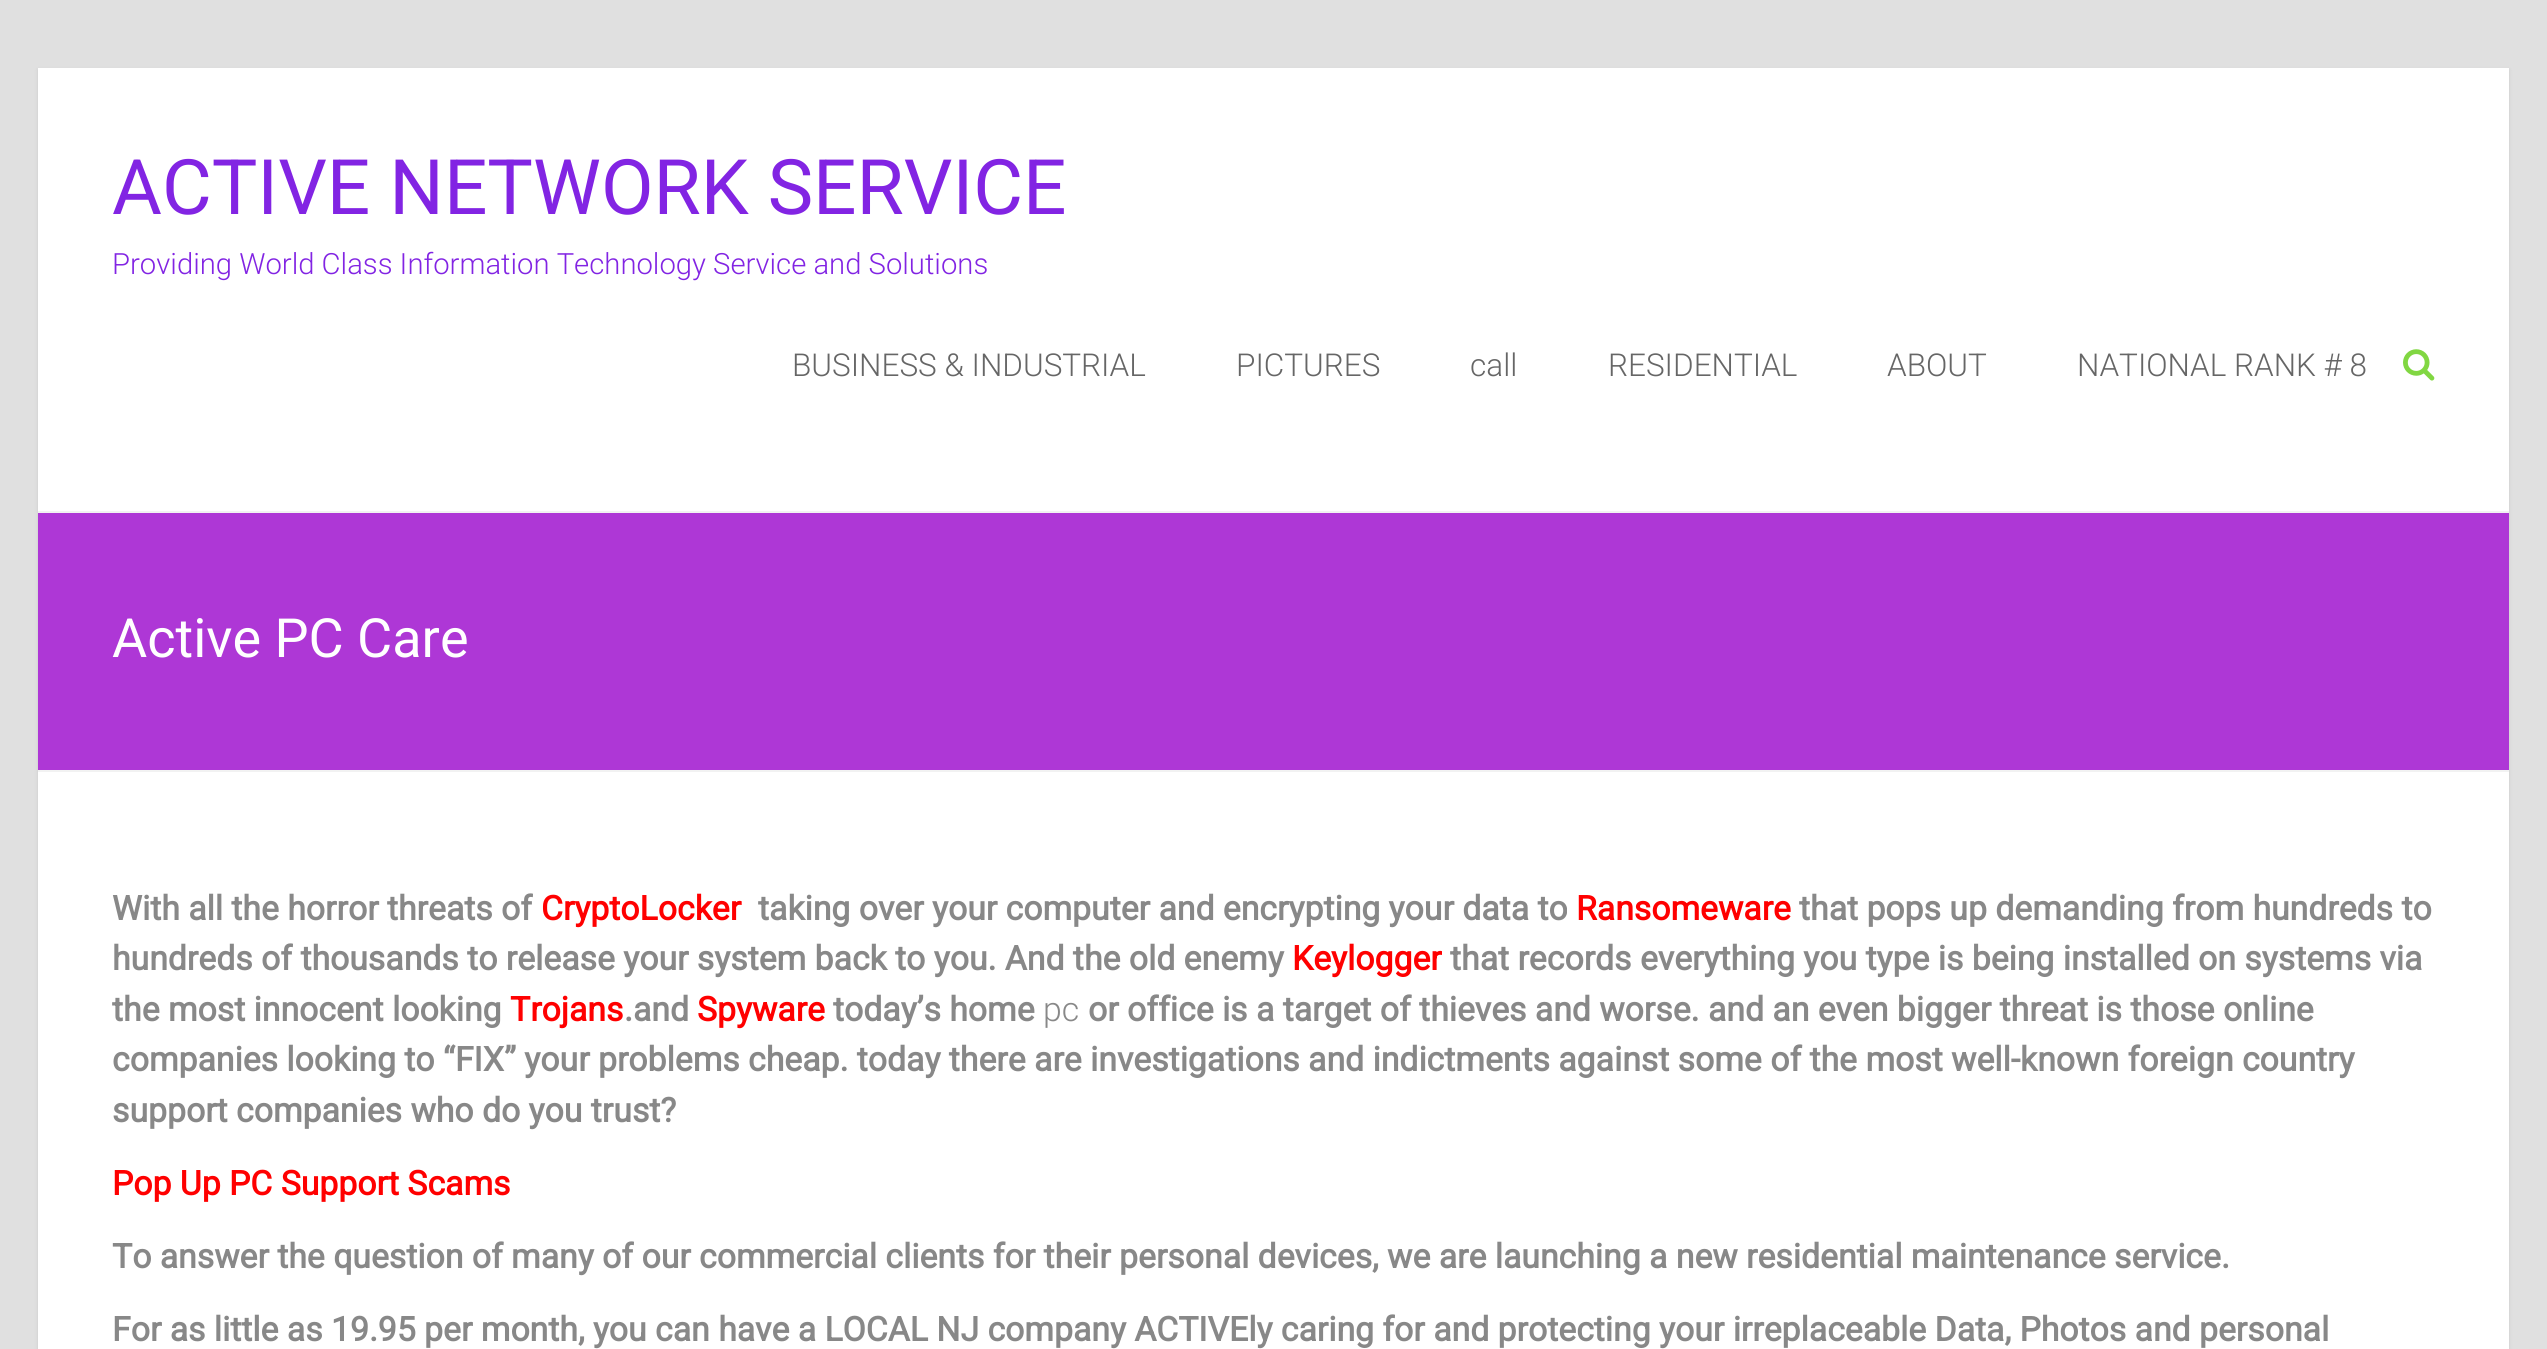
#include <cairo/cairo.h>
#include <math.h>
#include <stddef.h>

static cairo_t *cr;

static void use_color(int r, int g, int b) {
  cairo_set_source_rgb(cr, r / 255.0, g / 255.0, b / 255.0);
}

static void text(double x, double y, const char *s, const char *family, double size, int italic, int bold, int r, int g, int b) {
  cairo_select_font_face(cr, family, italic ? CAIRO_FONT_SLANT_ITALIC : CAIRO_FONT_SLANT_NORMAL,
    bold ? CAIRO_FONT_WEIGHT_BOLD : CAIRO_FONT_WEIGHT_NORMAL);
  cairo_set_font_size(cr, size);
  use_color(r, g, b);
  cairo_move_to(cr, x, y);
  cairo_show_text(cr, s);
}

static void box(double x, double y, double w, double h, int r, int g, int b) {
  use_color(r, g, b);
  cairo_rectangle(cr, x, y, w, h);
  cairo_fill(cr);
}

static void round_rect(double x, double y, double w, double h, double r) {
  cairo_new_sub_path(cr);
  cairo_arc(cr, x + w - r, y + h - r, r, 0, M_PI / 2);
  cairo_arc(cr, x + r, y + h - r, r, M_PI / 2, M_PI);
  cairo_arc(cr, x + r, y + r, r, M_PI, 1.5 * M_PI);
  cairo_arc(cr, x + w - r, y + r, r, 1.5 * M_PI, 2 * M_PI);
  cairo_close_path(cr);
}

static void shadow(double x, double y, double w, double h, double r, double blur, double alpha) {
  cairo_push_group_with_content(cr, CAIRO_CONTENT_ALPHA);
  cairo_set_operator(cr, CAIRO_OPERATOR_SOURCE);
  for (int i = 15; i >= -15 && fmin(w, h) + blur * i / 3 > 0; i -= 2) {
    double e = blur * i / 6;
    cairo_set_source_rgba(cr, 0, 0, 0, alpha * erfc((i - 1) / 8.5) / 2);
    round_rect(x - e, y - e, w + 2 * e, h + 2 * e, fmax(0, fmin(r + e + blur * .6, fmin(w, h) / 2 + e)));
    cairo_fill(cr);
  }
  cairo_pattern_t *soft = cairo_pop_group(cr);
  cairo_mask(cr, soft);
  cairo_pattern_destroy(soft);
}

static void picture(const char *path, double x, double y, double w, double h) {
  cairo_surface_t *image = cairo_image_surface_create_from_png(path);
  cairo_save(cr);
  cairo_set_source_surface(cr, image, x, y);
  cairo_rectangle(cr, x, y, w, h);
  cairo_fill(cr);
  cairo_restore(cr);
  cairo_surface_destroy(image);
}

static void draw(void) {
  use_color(224, 224, 224);
  cairo_paint(cr);
  use_color(0, 0, 0);
  shadow(38, 70, 2471, 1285, 0, 2, 0.1);
  box(38, 68, 2471, 1281, 255, 255, 255);
  box(38, 511, 2471, 2, 242, 242, 242);
  picture("img_01.png", 2403, 349, 32, 32);
  box(38, 513, 2471, 257, 174, 55, 214);
  box(38, 770, 2471, 2, 242, 242, 242);
  text(112, 214, "ACTIVE NETWORK SERVICE", "Roboto", 76.5, 0, 0, 130, 36, 227);
  text(112, 274, "Providing World Class Information Technology Service and Solutions", "Roboto Light", 29.25, 0, 0, 130, 36, 227);
  text(792, 376, "BUSINESS & INDUSTRIAL", "Roboto Light", 31.5, 0, 0, 102, 102, 102);
  text(1236, 376, "PICTURES", "Roboto Light", 31.5, 0, 0, 102, 102, 102);
  text(1470, 376, "call", "Roboto Light", 31.5, 0, 0, 102, 102, 102);
  text(1608, 376, "RESIDENTIAL", "Roboto Light", 31.5, 0, 0, 102, 102, 102);
  text(1887, 376, "ABOUT", "Roboto Light", 31.5, 0, 0, 102, 102, 102);
  text(2077, 376, "NATIONAL RANK # 8", "Roboto Light", 31.5, 0, 0, 102, 102, 102);
  text(112, 657, "Active PC Care", "Roboto", 54, 0, 0, 255, 255, 255);
  text(112, 920, "With all the horror threats of", "Roboto", 33.75, 0, 1, 136, 136, 136);
  text(541, 920, "CryptoLocker", "Roboto", 33.75, 0, 1, 255, 0, 0);
  text(758, 920, "taking over your computer and encrypting your data to", "Roboto", 33.75, 0, 1, 136, 136, 136);
  text(1576, 920, "Ransomeware", "Roboto", 33.75, 0, 1, 255, 0, 0);
  text(1799, 920, "that pops up demanding from hundreds to", "Roboto", 33.75, 0, 1, 136, 136, 136);
  text(112, 970, "hundreds of thousands to release your system back to you. And the old enemy", "Roboto", 33.75, 0, 1, 136, 136, 136);
  text(1292, 970, "Keylogger", "Roboto", 33.75, 0, 1, 255, 0, 0);
  text(1450, 970, "that records everything you type is being installed on systems via", "Roboto", 33.75, 0, 1, 136, 136, 136);
  text(112, 1021, "the most innocent looking", "Roboto", 33.75, 0, 1, 136, 136, 136);
  text(510, 1021, "Trojans", "Roboto", 33.75, 0, 1, 255, 0, 0);
  text(624, 1021, ".and", "Roboto", 33.75, 0, 1, 136, 136, 136);
  text(697, 1021, "Spyware", "Roboto", 33.75, 0, 1, 255, 0, 0);
  text(833, 1021, "today’s home", "Roboto", 33.75, 0, 1, 136, 136, 136);
  text(1043, 1021, "pc", "Roboto Light", 33.75, 0, 0, 136, 136, 136);
  text(1088, 1021, "or office is a target of thieves and worse. and an even bigger threat is those online", "Roboto", 33.75, 0, 1, 136, 136, 136);
  text(112, 1071, "companies looking to “FIX” your problems cheap. today there are investigations and indictments against some of the most well-known foreign country", "Roboto", 33.75, 0, 1, 136, 136, 136);
  text(112, 1122, "support companies who do you trust?", "Roboto", 33.75, 0, 1, 136, 136, 136);
  text(112, 1195, "Pop Up PC Support Scams", "Roboto", 33.75, 0, 1, 255, 0, 0);
  text(112, 1268, "To answer the question of many of our commercial clients for their personal devices, we are launching a new residential maintenance service.", "Roboto", 33.75, 0, 1, 136, 136, 136);
  text(112, 1341, "For as little as 19.95 per month, you can have a LOCAL NJ company ACTIVEly caring for and protecting your irreplaceable Data, Photos and personal", "Roboto", 33.75, 0, 1, 136, 136, 136);
}

int main(void) {
  cairo_surface_t *surface = cairo_image_surface_create(CAIRO_FORMAT_RGB24, 2547, 1349);
  cr = cairo_create(surface);
  cairo_font_options_t *options = cairo_font_options_create();
  cairo_font_options_set_hint_metrics(options, CAIRO_HINT_METRICS_OFF);
  cairo_font_options_set_hint_style(options, CAIRO_HINT_STYLE_NONE);
  cairo_set_font_options(cr, options);
  cairo_set_miter_limit(cr, 4);
  draw();
  cairo_surface_write_to_png(surface, "out.png");
  cairo_font_options_destroy(options);
  cairo_destroy(cr);
  cairo_surface_destroy(surface);
  return 0;
}
